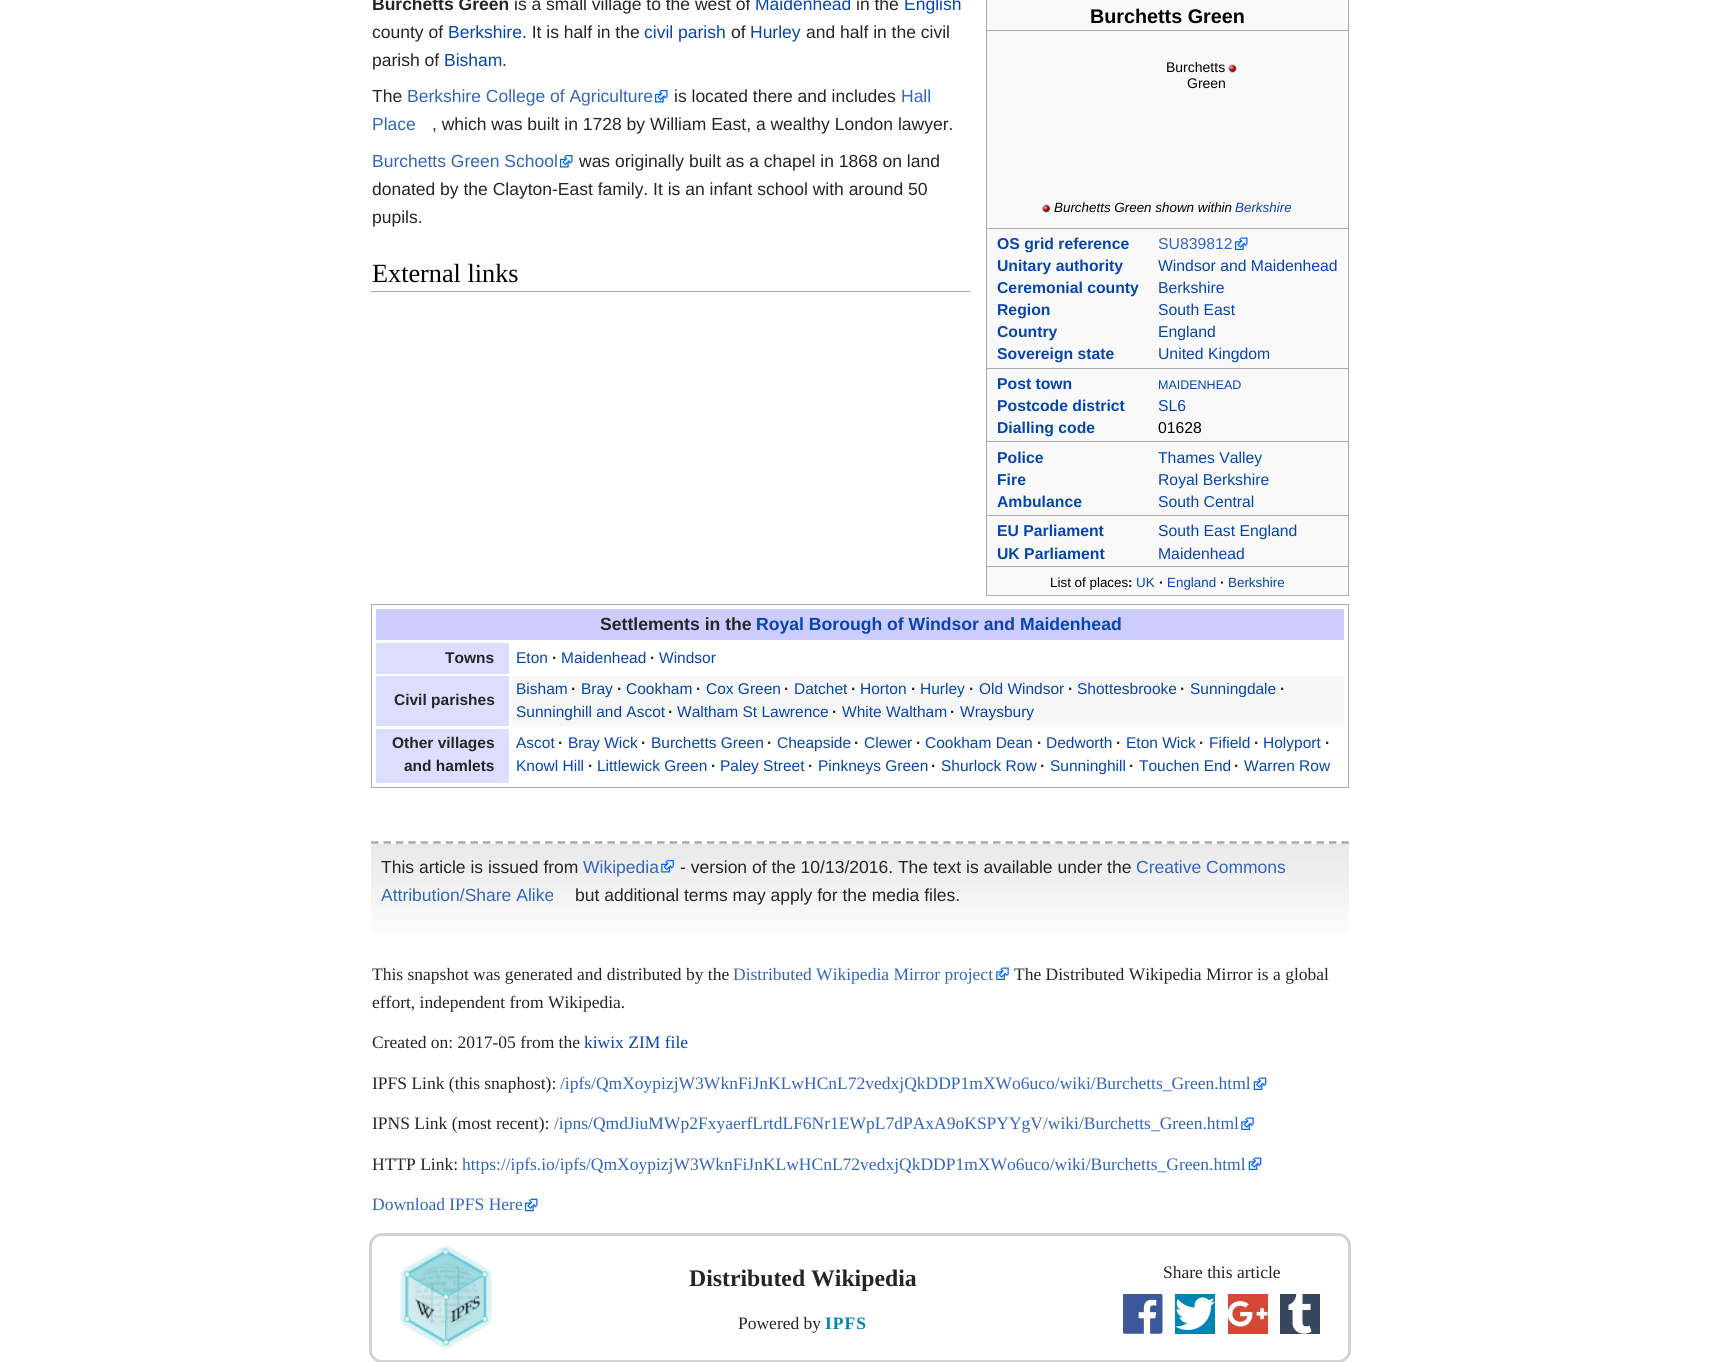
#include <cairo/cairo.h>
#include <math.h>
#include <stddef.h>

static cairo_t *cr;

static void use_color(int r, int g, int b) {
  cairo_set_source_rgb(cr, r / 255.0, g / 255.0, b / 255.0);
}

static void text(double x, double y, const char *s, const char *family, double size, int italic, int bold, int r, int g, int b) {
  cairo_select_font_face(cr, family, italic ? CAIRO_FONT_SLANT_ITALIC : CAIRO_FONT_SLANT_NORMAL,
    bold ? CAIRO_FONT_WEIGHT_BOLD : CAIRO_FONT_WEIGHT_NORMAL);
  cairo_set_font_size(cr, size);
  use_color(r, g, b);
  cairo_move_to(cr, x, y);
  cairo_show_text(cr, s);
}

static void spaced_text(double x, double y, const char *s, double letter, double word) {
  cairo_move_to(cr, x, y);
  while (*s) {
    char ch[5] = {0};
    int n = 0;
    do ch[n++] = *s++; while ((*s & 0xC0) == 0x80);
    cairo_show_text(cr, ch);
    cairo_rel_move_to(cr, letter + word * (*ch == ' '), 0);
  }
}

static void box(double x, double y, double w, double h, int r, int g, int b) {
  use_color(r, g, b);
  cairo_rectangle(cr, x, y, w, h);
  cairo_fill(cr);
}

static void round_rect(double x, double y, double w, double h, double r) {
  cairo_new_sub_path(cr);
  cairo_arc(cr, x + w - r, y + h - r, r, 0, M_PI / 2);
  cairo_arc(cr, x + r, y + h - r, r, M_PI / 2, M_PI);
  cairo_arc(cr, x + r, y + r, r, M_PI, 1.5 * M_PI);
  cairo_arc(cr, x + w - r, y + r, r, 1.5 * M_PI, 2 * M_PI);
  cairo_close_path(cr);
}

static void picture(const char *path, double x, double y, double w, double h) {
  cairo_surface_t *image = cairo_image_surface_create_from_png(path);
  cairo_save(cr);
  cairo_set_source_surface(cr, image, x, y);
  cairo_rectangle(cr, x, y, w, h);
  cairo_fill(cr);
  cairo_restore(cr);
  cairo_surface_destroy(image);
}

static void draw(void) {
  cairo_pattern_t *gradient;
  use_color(255, 255, 255);
  cairo_paint(cr);
  box(987, 0, 361, 595, 249, 249, 249);
  box(1348, 0, 1, 596, 170, 170, 170);
  box(986, 595, 363, 1, 170, 170, 170);
  box(986, 0, 1, 596, 170, 170, 170);
  box(986, 30, 363, 1, 170, 170, 170);
  picture("img_01.png", 1228, 64, 9, 9);
  picture("img_02.png", 1042, 204, 8, 9);
  box(986, 228, 363, 1, 170, 170, 170);
  picture("img_03.png", 1235, 237, 13, 13);
  box(986, 368, 363, 1, 170, 170, 170);
  box(986, 441, 363, 1, 170, 170, 170);
  box(986, 515, 363, 1, 170, 170, 170);
  box(986, 566, 363, 1, 170, 170, 170);
  picture("img_04.png", 655, 90, 13, 13);
  picture("img_04.png", 560, 155, 13, 13);
  box(371, 291, 599, 1, 170, 170, 170);
  cairo_rectangle(cr, 371.5, 604.5, 977, 183);
  cairo_set_line_width(cr, 1);
  cairo_stroke(cr);
  box(376, 609, 968, 31, 204, 204, 255);
  box(376, 643, 133, 31, 221, 221, 255);
  box(376, 676, 133, 50, 221, 221, 255);
  box(512, 676, 832, 50, 247, 247, 247);
  box(376, 729, 133, 54, 221, 221, 255);
  gradient = cairo_pattern_create_linear(860, 844, 860, 944);
  cairo_pattern_add_color_stop_rgba(gradient, 0, 0.91, 0.91, 0.91, 1);
  cairo_pattern_add_color_stop_rgba(gradient, 1, 1, 1, 1, 1);
  cairo_set_source(cr, gradient);
  cairo_pattern_destroy(gradient);
  cairo_rectangle(cr, 371, 844, 978, 89);
  cairo_fill(cr);
  cairo_new_path(cr);
  cairo_move_to(cr, 371, 842.5);
  cairo_line_to(cr, 1349, 842.5);
  use_color(170, 170, 170);
  cairo_set_line_width(cr, 2.5);
  cairo_set_dash(cr, (double[]){7.5, 4.94}, 2, 0);
  cairo_stroke(cr);
  picture("img_05.png", 661, 860, 13, 13);
  picture("img_06.png", 996, 967, 13, 13);
  picture("img_07.png", 1253, 1077, 14, 13);
  picture("img_06.png", 1241, 1117, 13, 13);
  picture("img_07.png", 1248, 1157, 14, 13);
  picture("img_08.png", 525, 1198, 13, 14);
  round_rect(370.5, 1234.5, 979, 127, 11.5);
  use_color(211, 211, 211);
  cairo_set_line_width(cr, 3);
  cairo_set_dash(cr, NULL, 0, 0);
  cairo_stroke(cr);
  picture("img_09.png", 400, 1246, 92, 103);
  picture("img_10.png", 1123, 1294, 40, 40);
  box(1175, 1294, 40, 40, 0, 132, 180);
  picture("img_11.png", 1175, 1297, 40, 33);
  box(1228, 1294, 40, 40, 211, 72, 54);
  picture("img_12.png", 1228, 1301, 40, 26);
  box(1280, 1294, 40, 40, 54, 70, 93);
  picture("img_13.png", 1288, 1294, 24, 40);
  text(372, 10, "Burchetts Green", "Liberation Sans", 17.5, 0, 1, 37, 37, 37);
  text(514, 10, "is a small village to the west of", "Liberation Sans", 17.5, 0, 0, 37, 37, 37);
  text(755, 10, "Maidenhead", "Liberation Sans", 17.5, 0, 0, 6, 69, 173);
  text(856, 10, "in the", "Liberation Sans", 17.5, 0, 0, 37, 37, 37);
  text(904, 10, "English", "Liberation Sans", 17.5, 0, 0, 6, 69, 173);
  text(372, 38, "county of", "Liberation Sans", 17.5, 0, 0, 37, 37, 37);
  text(448, 38, "Berkshire", "Liberation Sans", 17.5, 0, 0, 6, 69, 173);
  text(522, 38, ". It is half in the", "Liberation Sans", 17.5, 0, 0, 37, 37, 37);
  text(644, 38, "civil parish", "Liberation Sans", 17.5, 0, 0, 6, 69, 173);
  text(731, 38, "of", "Liberation Sans", 17.5, 0, 0, 37, 37, 37);
  text(750, 38, "Hurley", "Liberation Sans", 17.5, 0, 0, 6, 69, 173);
  text(806, 38, "and half in the civil", "Liberation Sans", 17.5, 0, 0, 37, 37, 37);
  text(372, 66, "parish of", "Liberation Sans", 17.5, 0, 0, 37, 37, 37);
  text(444, 66, "Bisham", "Liberation Sans", 17.5, 0, 0, 6, 69, 173);
  text(502, 66, ".", "Liberation Sans", 17.5, 0, 0, 37, 37, 37);
  text(1090, 23, "Burchetts Green", "Liberation Sans", 19.75, 0, 1, 0, 0, 0);
  text(1166, 72, "Burchetts", "Liberation Sans", 14, 0, 0, 0, 0, 0);
  text(1187, 88, "Green", "Liberation Sans", 14, 0, 0, 0, 0, 0);
  text(1054, 212, "Burchetts Green shown within", "Liberation Sans", 13.4, 1, 0, 0, 0, 0);
  text(1235, 212, "Berkshire", "Liberation Sans", 13.4, 1, 0, 6, 69, 173);
  text(997, 249, "OS grid reference", "Liberation Sans", 15.75, 0, 1, 6, 69, 173);
  text(1158, 249, "SU839812", "Liberation Sans", 15.75, 0, 0, 51, 102, 187);
  text(997, 271, "Unitary authority", "Liberation Sans", 15.75, 0, 1, 6, 69, 173);
  text(1158, 271, "Windsor and Maidenhead", "Liberation Sans", 15.75, 0, 0, 6, 69, 173);
  text(997, 293, "Ceremonial county", "Liberation Sans", 15.75, 0, 1, 6, 69, 173);
  text(1158, 293, "Berkshire", "Liberation Sans", 15.75, 0, 0, 6, 69, 173);
  text(997, 315, "Region", "Liberation Sans", 15.75, 0, 1, 6, 69, 173);
  text(1158, 315, "South East", "Liberation Sans", 15.75, 0, 0, 6, 69, 173);
  text(997, 337, "Country", "Liberation Sans", 15.75, 0, 1, 6, 69, 173);
  text(1158, 337, "England", "Liberation Sans", 15.75, 0, 0, 6, 69, 173);
  text(997, 359, "Sovereign state", "Liberation Sans", 15.75, 0, 1, 6, 69, 173);
  text(1158, 359, "United Kingdom", "Liberation Sans", 15.75, 0, 0, 6, 69, 173);
  text(997, 389, "Post town", "Liberation Sans", 15.75, 0, 1, 6, 69, 173);
  text(1158, 389, "MAIDENHEAD", "Liberation Sans", 12.5, 0, 0, 6, 69, 173);
  text(997, 411, "Postcode district", "Liberation Sans", 15.75, 0, 1, 6, 69, 173);
  text(1158, 411, "SL6", "Liberation Sans", 15.75, 0, 0, 6, 69, 173);
  text(997, 433, "Dialling code", "Liberation Sans", 15.75, 0, 1, 6, 69, 173);
  text(1158, 433, "01628", "Liberation Sans", 15.75, 0, 0, 0, 0, 0);
  text(997, 463, "Police", "Liberation Sans", 15.75, 0, 1, 6, 69, 173);
  text(1158, 463, "Thames Valley", "Liberation Sans", 15.75, 0, 0, 6, 69, 173);
  text(997, 485, "Fire", "Liberation Sans", 15.75, 0, 1, 6, 69, 173);
  text(1158, 485, "Royal Berkshire", "Liberation Sans", 15.75, 0, 0, 6, 69, 173);
  text(997, 507, "Ambulance", "Liberation Sans", 15.75, 0, 1, 6, 69, 173);
  text(1158, 507, "South Central", "Liberation Sans", 15.75, 0, 0, 6, 69, 173);
  text(997, 536, "EU Parliament", "Liberation Sans", 15.75, 0, 1, 6, 69, 173);
  text(1158, 536, "South East England", "Liberation Sans", 15.75, 0, 0, 6, 69, 173);
  text(997, 559, "UK Parliament", "Liberation Sans", 15.75, 0, 1, 6, 69, 173);
  text(1158, 559, "Maidenhead", "Liberation Sans", 15.75, 0, 0, 6, 69, 173);
  text(1050, 587, "List of places", "Liberation Sans", 13.4, 0, 0, 0, 0, 0);
  text(1128, 587, ":", "Liberation Sans", 13.4, 0, 1, 0, 0, 0);
  text(1136, 587, "UK", "Liberation Sans", 13.4, 0, 0, 6, 69, 173);
  text(1159, 587, "·", "Liberation Sans", 13.4, 0, 1, 0, 0, 0);
  text(1167, 587, "England", "Liberation Sans", 13.4, 0, 0, 6, 69, 173);
  text(1220, 587, "·", "Liberation Sans", 13.4, 0, 1, 0, 0, 0);
  text(1228, 587, "Berkshire", "Liberation Sans", 13.4, 0, 0, 6, 69, 173);
  text(372, 102, "The", "Liberation Sans", 17.5, 0, 0, 37, 37, 37);
  text(407, 102, "Berkshire College of Agriculture", "Liberation Sans", 17.5, 0, 0, 51, 102, 187);
  text(674, 102, "is located there and includes", "Liberation Sans", 17.5, 0, 0, 37, 37, 37);
  text(901, 102, "Hall", "Liberation Sans", 17.5, 0, 0, 51, 102, 187);
  text(372, 130, "Place", "Liberation Sans", 17.5, 0, 0, 51, 102, 187);
  text(432, 130, ", which was built in 1728 by William East, a wealthy London lawyer.", "Liberation Sans", 17.5, 0, 0, 37, 37, 37);
  text(372, 167, "Burchetts Green School", "Liberation Sans", 17.5, 0, 0, 51, 102, 187);
  text(579, 167, "was originally built as a chapel in 1868 on land", "Liberation Sans", 17.5, 0, 0, 37, 37, 37);
  text(372, 195, "donated by the Clayton-East family. It is an infant school with around 50", "Liberation Sans", 17.5, 0, 0, 37, 37, 37);
  text(372, 223, "pupils.", "Liberation Sans", 17.5, 0, 0, 37, 37, 37);
  text(372, 282, "External links", "Liberation Serif", 26.25, 0, 0, 0, 0, 0);
  text(600, 630, "Settlements in the", "Liberation Sans", 17.6, 0, 1, 37, 37, 37);
  text(756, 630, "Royal Borough of Windsor and Maidenhead", "Liberation Sans", 17.6, 0, 1, 6, 69, 173);
  text(445, 663, "Towns", "Liberation Sans", 15.5, 0, 1, 37, 37, 37);
  text(516, 663, "Eton", "Liberation Sans", 15.5, 0, 0, 6, 69, 173);
  text(552, 663, "·", "Liberation Sans", 15.5, 0, 1, 37, 37, 37);
  text(561, 663, "Maidenhead", "Liberation Sans", 15.5, 0, 0, 6, 69, 173);
  text(650, 663, "·", "Liberation Sans", 15.5, 0, 1, 37, 37, 37);
  text(659, 663, "Windsor", "Liberation Sans", 15.5, 0, 0, 6, 69, 173);
  text(394, 705, "Civil parishes", "Liberation Sans", 15.5, 0, 1, 37, 37, 37);
  text(516, 694, "Bisham", "Liberation Sans", 15.5, 0, 0, 6, 69, 173);
  text(571, 694, "·", "Liberation Sans", 15.5, 0, 1, 37, 37, 37);
  text(581, 694, "Bray", "Liberation Sans", 15.5, 0, 0, 6, 69, 173);
  text(617, 694, "·", "Liberation Sans", 15.5, 0, 1, 37, 37, 37);
  text(626, 694, "Cookham", "Liberation Sans", 15.5, 0, 0, 6, 69, 173);
  text(696, 694, "·", "Liberation Sans", 15.5, 0, 1, 37, 37, 37);
  text(706, 694, "Cox Green", "Liberation Sans", 15.5, 0, 0, 6, 69, 173);
  text(784, 694, "·", "Liberation Sans", 15.5, 0, 1, 37, 37, 37);
  text(794, 694, "Datchet", "Liberation Sans", 15.5, 0, 0, 6, 69, 173);
  text(851, 694, "·", "Liberation Sans", 15.5, 0, 1, 37, 37, 37);
  text(860, 694, "Horton", "Liberation Sans", 15.5, 0, 0, 6, 69, 173);
  text(911, 694, "·", "Liberation Sans", 15.5, 0, 1, 37, 37, 37);
  text(920, 694, "Hurley", "Liberation Sans", 15.5, 0, 0, 6, 69, 173);
  text(969, 694, "·", "Liberation Sans", 15.5, 0, 1, 37, 37, 37);
  text(979, 694, "Old Windsor", "Liberation Sans", 15.5, 0, 0, 6, 69, 173);
  text(1068, 694, "·", "Liberation Sans", 15.5, 0, 1, 37, 37, 37);
  text(1077, 694, "Shottesbrooke", "Liberation Sans", 15.5, 0, 0, 6, 69, 173);
  text(1180, 694, "·", "Liberation Sans", 15.5, 0, 1, 37, 37, 37);
  text(1190, 694, "Sunningdale", "Liberation Sans", 15.5, 0, 0, 6, 69, 173);
  text(1280, 694, "·", "Liberation Sans", 15.5, 0, 1, 37, 37, 37);
  text(516, 717, "Sunninghill and Ascot", "Liberation Sans", 15.5, 0, 0, 6, 69, 173);
  text(668, 717, "·", "Liberation Sans", 15.5, 0, 1, 37, 37, 37);
  text(677, 717, "Waltham St Lawrence", "Liberation Sans", 15.5, 0, 0, 6, 69, 173);
  text(832, 717, "·", "Liberation Sans", 15.5, 0, 1, 37, 37, 37);
  text(842, 717, "White Waltham", "Liberation Sans", 15.5, 0, 0, 6, 69, 173);
  text(950, 717, "·", "Liberation Sans", 15.5, 0, 1, 37, 37, 37);
  text(960, 717, "Wraysbury", "Liberation Sans", 15.5, 0, 0, 6, 69, 173);
  text(392, 748, "Other villages", "Liberation Sans", 15.5, 0, 1, 37, 37, 37);
  text(404, 771, "and hamlets", "Liberation Sans", 15.5, 0, 1, 37, 37, 37);
  text(516, 748, "Ascot", "Liberation Sans", 15.5, 0, 0, 6, 69, 173);
  text(558, 748, "·", "Liberation Sans", 15.5, 0, 1, 37, 37, 37);
  text(568, 748, "Bray Wick", "Liberation Sans", 15.5, 0, 0, 6, 69, 173);
  text(641, 748, "·", "Liberation Sans", 15.5, 0, 1, 37, 37, 37);
  text(651, 748, "Burchetts Green", "Liberation Sans", 15.5, 0, 0, 6, 69, 173);
  text(767, 748, "·", "Liberation Sans", 15.5, 0, 1, 37, 37, 37);
  text(777, 748, "Cheapside", "Liberation Sans", 15.5, 0, 0, 6, 69, 173);
  text(854, 748, "·", "Liberation Sans", 15.5, 0, 1, 37, 37, 37);
  text(864, 748, "Clewer", "Liberation Sans", 15.5, 0, 0, 6, 69, 173);
  text(916, 748, "·", "Liberation Sans", 15.5, 0, 1, 37, 37, 37);
  text(925, 748, "Cookham Dean", "Liberation Sans", 15.5, 0, 0, 6, 69, 173);
  text(1037, 748, "·", "Liberation Sans", 15.5, 0, 1, 37, 37, 37);
  text(1046, 748, "Dedworth", "Liberation Sans", 15.5, 0, 0, 6, 69, 173);
  text(1116, 748, "·", "Liberation Sans", 15.5, 0, 1, 37, 37, 37);
  text(1126, 748, "Eton Wick", "Liberation Sans", 15.5, 0, 0, 6, 69, 173);
  text(1199, 748, "·", "Liberation Sans", 15.5, 0, 1, 37, 37, 37);
  text(1209, 748, "Fifield", "Liberation Sans", 15.5, 0, 0, 6, 69, 173);
  text(1254, 748, "·", "Liberation Sans", 15.5, 0, 1, 37, 37, 37);
  text(1263, 748, "Holyport", "Liberation Sans", 15.5, 0, 0, 6, 69, 173);
  text(1325, 748, "·", "Liberation Sans", 15.5, 0, 1, 37, 37, 37);
  text(516, 771, "Knowl Hill", "Liberation Sans", 15.5, 0, 0, 6, 69, 173);
  text(588, 771, "·", "Liberation Sans", 15.5, 0, 1, 37, 37, 37);
  text(597, 771, "Littlewick Green", "Liberation Sans", 15.5, 0, 0, 6, 69, 173);
  text(711, 771, "·", "Liberation Sans", 15.5, 0, 1, 37, 37, 37);
  text(720, 771, "Paley Street", "Liberation Sans", 15.5, 0, 0, 6, 69, 173);
  text(808, 771, "·", "Liberation Sans", 15.5, 0, 1, 37, 37, 37);
  text(818, 771, "Pinkneys Green", "Liberation Sans", 15.5, 0, 0, 6, 69, 173);
  text(931, 771, "·", "Liberation Sans", 15.5, 0, 1, 37, 37, 37);
  text(941, 771, "Shurlock Row", "Liberation Sans", 15.5, 0, 0, 6, 69, 173);
  text(1040, 771, "·", "Liberation Sans", 15.5, 0, 1, 37, 37, 37);
  text(1050, 771, "Sunninghill", "Liberation Sans", 15.5, 0, 0, 6, 69, 173);
  text(1129, 771, "·", "Liberation Sans", 15.5, 0, 1, 37, 37, 37);
  text(1139, 771, "Touchen End", "Liberation Sans", 15.5, 0, 0, 6, 69, 173);
  text(1234, 771, "·", "Liberation Sans", 15.5, 0, 1, 37, 37, 37);
  text(1244, 771, "Warren Row", "Liberation Sans", 15.5, 0, 0, 6, 69, 173);
  text(381, 873, "This article is issued from", "Liberation Sans", 17.5, 0, 0, 37, 37, 37);
  text(583, 873, "Wikipedia", "Liberation Sans", 17.5, 0, 0, 51, 102, 187);
  text(680, 873, "- version of the 10/13/2016. The text is available under the", "Liberation Sans", 17.5, 0, 0, 37, 37, 37);
  text(1136, 873, "Creative Commons", "Liberation Sans", 17.5, 0, 0, 51, 102, 187);
  text(381, 901, "Attribution/Share Alike", "Liberation Sans", 17.5, 0, 0, 51, 102, 187);
  text(575, 901, "but additional terms may apply for the media files.", "Liberation Sans", 17.5, 0, 0, 37, 37, 37);
  text(372, 980, "This snapshot was generated and distributed by the", "Liberation Serif", 17.5, 0, 0, 37, 37, 37);
  text(733, 980, "Distributed Wikipedia Mirror project", "Liberation Serif", 17.5, 0, 0, 51, 102, 187);
  text(1014, 980, "The Distributed Wikipedia Mirror is a global", "Liberation Serif", 17.5, 0, 0, 37, 37, 37);
  text(372, 1008, "effort, independent from Wikipedia.", "Liberation Serif", 17.5, 0, 0, 37, 37, 37);
  text(372, 1048, "Created on: 2017-05 from the", "Liberation Serif", 17.5, 0, 0, 37, 37, 37);
  text(584, 1048, "kiwix ZIM file", "Liberation Serif", 17.5, 0, 0, 6, 69, 173);
  text(372, 1089, "IPFS Link (this snaphost):", "Liberation Serif", 17.5, 0, 0, 37, 37, 37);
  text(560, 1089, "/ipfs/QmXoypizjW3WknFiJnKLwHCnL72vedxjQkDDP1mXWo6uco/wiki/Burchetts_Green.html", "Liberation Serif", 17.5, 0, 0, 51, 102, 187);
  text(372, 1129, "IPNS Link (most recent):", "Liberation Serif", 17.5, 0, 0, 37, 37, 37);
  text(554, 1129, "/ipns/QmdJiuMWp2FxyaerfLrtdLF6Nr1EWpL7dPAxA9oKSPYYgV/wiki/Burchetts_Green.html", "Liberation Serif", 17.5, 0, 0, 51, 102, 187);
  text(372, 1170, "HTTP Link:", "Liberation Serif", 17.5, 0, 0, 37, 37, 37);
  text(462, 1170, "https://ipfs.io/ipfs/QmXoypizjW3WknFiJnKLwHCnL72vedxjQkDDP1mXWo6uco/wiki/Burchetts_Green.html", "Liberation Serif", 17.5, 0, 0, 51, 102, 187);
  text(372, 1210, "Download IPFS Here", "Liberation Serif", 17.5, 0, 0, 51, 102, 187);
  text(689, 1286, "Distributed Wikipedia", "Liberation Serif", 23.75, 0, 1, 37, 37, 37);
  text(738, 1329, "Powered by", "Liberation Serif", 17.5, 0, 0, 37, 37, 37);
  cairo_select_font_face(cr, "Liberation Serif", CAIRO_FONT_SLANT_NORMAL, CAIRO_FONT_WEIGHT_BOLD);
  use_color(0, 132, 180);
  spaced_text(825, 1329, "IPFS", 1, 0);
  text(1163, 1278, "Share this article", "Liberation Serif", 17.5, 0, 0, 37, 37, 37);
}

int main(void) {
  cairo_surface_t *surface = cairo_image_surface_create(CAIRO_FORMAT_RGB24, 1720, 1362);
  cr = cairo_create(surface);
  cairo_font_options_t *options = cairo_font_options_create();
  cairo_font_options_set_hint_metrics(options, CAIRO_HINT_METRICS_OFF);
  cairo_font_options_set_hint_style(options, CAIRO_HINT_STYLE_NONE);
  cairo_set_font_options(cr, options);
  cairo_set_miter_limit(cr, 4);
  draw();
  cairo_surface_write_to_png(surface, "out.png");
  cairo_font_options_destroy(options);
  cairo_destroy(cr);
  cairo_surface_destroy(surface);
  return 0;
}
